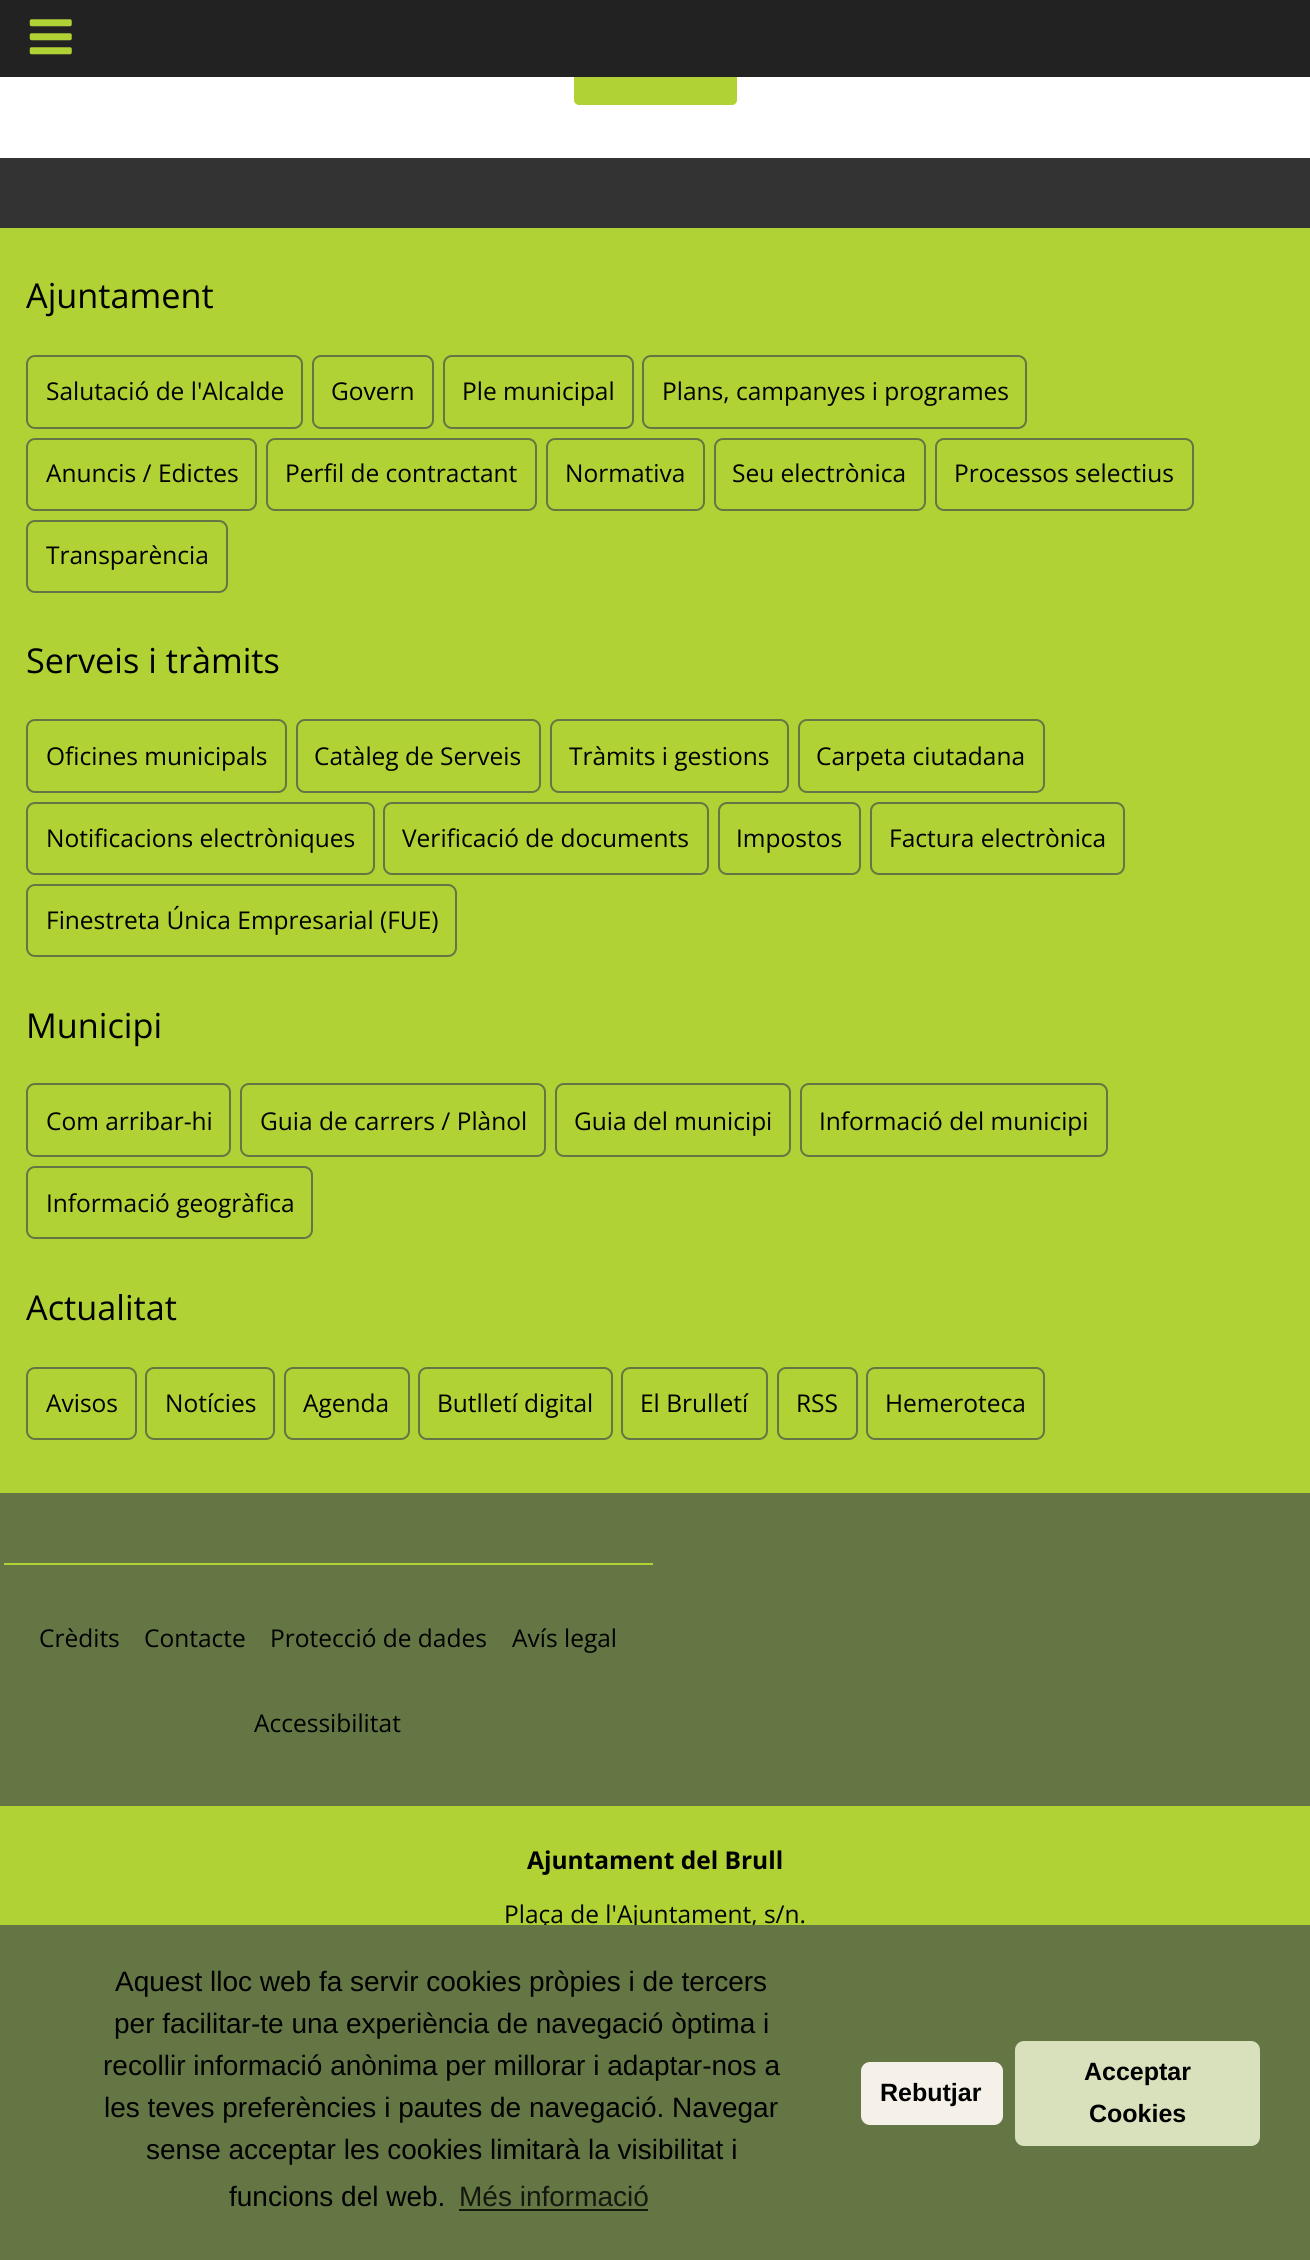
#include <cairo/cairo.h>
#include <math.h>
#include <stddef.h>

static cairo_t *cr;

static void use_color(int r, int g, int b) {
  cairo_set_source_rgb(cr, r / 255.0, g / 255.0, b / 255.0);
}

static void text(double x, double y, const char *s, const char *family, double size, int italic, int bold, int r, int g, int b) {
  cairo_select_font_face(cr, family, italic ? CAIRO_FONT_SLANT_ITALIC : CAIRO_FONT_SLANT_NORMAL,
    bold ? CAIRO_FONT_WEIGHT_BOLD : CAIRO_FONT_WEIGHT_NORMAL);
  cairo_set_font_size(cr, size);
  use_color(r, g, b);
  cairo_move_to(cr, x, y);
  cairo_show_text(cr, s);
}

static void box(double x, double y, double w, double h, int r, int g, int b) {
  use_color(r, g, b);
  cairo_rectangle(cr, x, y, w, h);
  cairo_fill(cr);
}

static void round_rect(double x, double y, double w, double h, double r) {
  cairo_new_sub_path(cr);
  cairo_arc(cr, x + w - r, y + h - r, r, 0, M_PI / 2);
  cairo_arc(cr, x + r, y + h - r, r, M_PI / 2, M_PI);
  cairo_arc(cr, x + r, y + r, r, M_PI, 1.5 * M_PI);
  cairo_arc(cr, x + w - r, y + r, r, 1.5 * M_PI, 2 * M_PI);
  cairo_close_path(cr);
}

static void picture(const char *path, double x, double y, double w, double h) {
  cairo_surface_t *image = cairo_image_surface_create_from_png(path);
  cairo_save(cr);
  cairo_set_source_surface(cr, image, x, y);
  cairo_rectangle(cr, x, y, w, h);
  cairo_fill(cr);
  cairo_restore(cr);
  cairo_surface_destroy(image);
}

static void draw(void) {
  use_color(255, 255, 255);
  cairo_paint(cr);
  use_color(177, 210, 52);
  round_rect(574, 14, 163, 91, 5);
  cairo_fill(cr);
  box(0, 0, 1310, 77, 34, 34, 34);
  picture("img_01.png", 29, 19, 43, 36);
  box(0, 158, 1310, 70, 51, 51, 51);
  box(0, 228, 1310, 1265, 177, 210, 52);
  round_rect(27, 356, 275, 72, 8);
  use_color(99, 118, 68);
  cairo_stroke(cr);
  round_rect(313, 356, 120, 72, 8);
  cairo_stroke(cr);
  round_rect(444, 356, 189, 72, 8);
  cairo_stroke(cr);
  round_rect(643, 356, 383, 72, 8);
  cairo_stroke(cr);
  round_rect(27, 439, 229, 71, 8);
  cairo_stroke(cr);
  round_rect(267, 439, 269, 71, 8);
  cairo_stroke(cr);
  round_rect(547, 439, 157, 71, 8);
  cairo_stroke(cr);
  round_rect(715, 439, 210, 71, 8);
  cairo_stroke(cr);
  round_rect(936, 439, 257, 71, 8);
  cairo_stroke(cr);
  round_rect(27, 521, 200, 71, 8);
  cairo_stroke(cr);
  round_rect(27, 720, 259, 72, 8);
  cairo_stroke(cr);
  round_rect(297, 720, 243, 72, 8);
  cairo_stroke(cr);
  round_rect(551, 720, 237, 72, 8);
  cairo_stroke(cr);
  round_rect(799, 720, 245, 72, 8);
  cairo_stroke(cr);
  round_rect(27, 803, 347, 71, 8);
  cairo_stroke(cr);
  round_rect(384, 803, 324, 71, 8);
  cairo_stroke(cr);
  round_rect(719, 803, 141, 71, 8);
  cairo_stroke(cr);
  round_rect(871, 803, 253, 71, 8);
  cairo_stroke(cr);
  round_rect(27, 885, 429, 71, 8);
  cairo_stroke(cr);
  round_rect(27, 1084, 203, 72, 8);
  cairo_stroke(cr);
  round_rect(241, 1084, 304, 72, 8);
  cairo_stroke(cr);
  round_rect(556, 1084, 234, 72, 8);
  cairo_stroke(cr);
  round_rect(801, 1084, 306, 72, 8);
  cairo_stroke(cr);
  round_rect(27, 1167, 285, 71, 8);
  cairo_stroke(cr);
  round_rect(27, 1368, 109, 71, 8);
  cairo_stroke(cr);
  round_rect(146, 1368, 128, 71, 8);
  cairo_stroke(cr);
  round_rect(285, 1368, 124, 71, 8);
  cairo_stroke(cr);
  round_rect(419, 1368, 193, 71, 8);
  cairo_stroke(cr);
  round_rect(622, 1368, 145, 71, 8);
  cairo_stroke(cr);
  round_rect(778, 1368, 79, 71, 8);
  cairo_stroke(cr);
  round_rect(867, 1368, 177, 71, 8);
  cairo_stroke(cr);
  box(0, 1493, 1310, 313, 99, 118, 68);
  box(4, 1563, 649, 2, 177, 210, 52);
  box(0, 1806, 1310, 119, 177, 210, 52);
  text(26, 308, "Ajuntament", "Open Sans", 34.25, 0, 0, 0, 0, 0);
  text(46, 400, "Salutació de l'Alcalde", "Open Sans", 24.5, 0, 0, 0, 0, 0);
  text(331, 400, "Govern", "Open Sans", 24.5, 0, 0, 0, 0, 0);
  text(462, 400, "Ple municipal", "Open Sans", 24.5, 0, 0, 0, 0, 0);
  text(662, 400, "Plans, campanyes i programes", "Open Sans", 24.5, 0, 0, 0, 0, 0);
  text(46, 482, "Anuncis / Edictes", "Open Sans", 24.5, 0, 0, 0, 0, 0);
  text(285, 482, "Perfil de contractant", "Open Sans", 24.5, 0, 0, 0, 0, 0);
  text(565, 482, "Normativa", "Open Sans", 24.5, 0, 0, 0, 0, 0);
  text(732, 482, "Seu electrònica", "Open Sans", 24.5, 0, 0, 0, 0, 0);
  text(954, 482, "Processos selectius", "Open Sans", 24.5, 0, 0, 0, 0, 0);
  text(46, 564, "Transparència", "Open Sans", 24.5, 0, 0, 0, 0, 0);
  text(26, 673, "Serveis i tràmits", "Open Sans", 34.25, 0, 0, 0, 0, 0);
  text(46, 765, "Oficines municipals", "Open Sans", 24.5, 0, 0, 0, 0, 0);
  text(314, 765, "Catàleg de Serveis", "Open Sans", 24.5, 0, 0, 0, 0, 0);
  text(569, 765, "Tràmits i gestions", "Open Sans", 24.5, 0, 0, 0, 0, 0);
  text(816, 765, "Carpeta ciutadana", "Open Sans", 24.5, 0, 0, 0, 0, 0);
  text(46, 847, "Notificacions electròniques", "Open Sans", 24.5, 0, 0, 0, 0, 0);
  text(402, 847, "Verificació de documents", "Open Sans", 24.5, 0, 0, 0, 0, 0);
  text(736, 847, "Impostos", "Open Sans", 24.5, 0, 0, 0, 0, 0);
  text(889, 847, "Factura electrònica", "Open Sans", 24.5, 0, 0, 0, 0, 0);
  text(46, 929, "Finestreta Única Empresarial (FUE)", "Open Sans", 24.5, 0, 0, 0, 0, 0);
  text(26, 1038, "Municipi", "Open Sans", 34.25, 0, 0, 0, 0, 0);
  text(46, 1130, "Com arribar-hi", "Open Sans", 24.5, 0, 0, 0, 0, 0);
  text(260, 1130, "Guia de carrers / Plànol", "Open Sans", 24.5, 0, 0, 0, 0, 0);
  text(574, 1130, "Guia del municipi", "Open Sans", 24.5, 0, 0, 0, 0, 0);
  text(819, 1130, "Informació del municipi", "Open Sans", 24.5, 0, 0, 0, 0, 0);
  text(46, 1212, "Informació geogràfica", "Open Sans", 24.5, 0, 0, 0, 0, 0);
  text(26, 1320, "Actualitat", "Open Sans", 34.25, 0, 0, 0, 0, 0);
  text(46, 1412, "Avisos", "Open Sans", 24.5, 0, 0, 0, 0, 0);
  text(165, 1412, "Notícies", "Open Sans", 24.5, 0, 0, 0, 0, 0);
  text(303, 1412, "Agenda", "Open Sans", 24.5, 0, 0, 0, 0, 0);
  text(437, 1412, "Butlletí digital", "Open Sans", 24.5, 0, 0, 0, 0, 0);
  text(640, 1412, "El Brulletí", "Open Sans", 24.5, 0, 0, 0, 0, 0);
  text(796, 1412, "RSS", "Open Sans", 24.5, 0, 0, 0, 0, 0);
  text(885, 1412, "Hemeroteca", "Open Sans", 24.5, 0, 0, 0, 0, 0);
  text(39, 1647, "Crèdits", "Open Sans", 24.5, 0, 0, 0, 0, 0);
  text(144, 1647, "Contacte", "Open Sans", 24.5, 0, 0, 0, 0, 0);
  text(270, 1647, "Protecció de dades", "Open Sans", 24.5, 0, 0, 0, 0, 0);
  text(512, 1647, "Avís legal", "Open Sans", 24.5, 0, 0, 0, 0, 0);
  text(254, 1732, "Accessibilitat", "Open Sans", 24.5, 0, 0, 0, 0, 0);
  text(527, 1869, "Ajuntament del Brull", "Open Sans", 24.5, 0, 1, 0, 0, 0);
  text(504, 1923, "Plaça de l'Ajuntament, s/n.", "Open Sans", 24.5, 0, 0, 0, 0, 0);
  box(0, 1925, 1310, 335, 99, 118, 68);
  text(115, 1991, "Aquest lloc web fa servir cookies pròpies i de tercers", "Liberation Sans", 28, 0, 0, 0, 0, 0);
  text(114, 2033, "per facilitar-te una experiència de navegació òptima i", "Liberation Sans", 28, 0, 0, 0, 0, 0);
  text(103, 2075, "recollir informació anònima per millorar i adaptar-nos a", "Liberation Sans", 28, 0, 0, 0, 0, 0);
  text(104, 2117, "les teves preferències i pautes de navegació. Navegar", "Liberation Sans", 28, 0, 0, 0, 0, 0);
  text(146, 2159, "sense acceptar les cookies limitarà la visibilitat i", "Liberation Sans", 28, 0, 0, 0, 0, 0);
  text(229, 2206, "funcions del web.", "Liberation Sans", 28, 0, 0, 0, 0, 0);
  text(459, 2206, "Més informació", "Liberation Sans", 28, 0, 0, 20, 24, 14);
  box(459, 2209, 189, 2, 20, 24, 14);
  use_color(245, 241, 233);
  round_rect(861, 2062, 142, 63, 9);
  cairo_fill(cr);
  text(880, 2101, "Rebutjar", "Liberation Sans", 25, 0, 1, 0, 0, 0);
  use_color(217, 225, 188);
  round_rect(1015, 2041, 245, 105, 9);
  cairo_fill(cr);
  text(1084, 2080, "Acceptar", "Liberation Sans", 25, 0, 1, 0, 0, 0);
  text(1089, 2122, "Cookies", "Liberation Sans", 25, 0, 1, 0, 0, 0);
}

int main(void) {
  cairo_surface_t *surface = cairo_image_surface_create(CAIRO_FORMAT_RGB24, 1310, 2260);
  cr = cairo_create(surface);
  cairo_font_options_t *options = cairo_font_options_create();
  cairo_font_options_set_hint_metrics(options, CAIRO_HINT_METRICS_OFF);
  cairo_font_options_set_hint_style(options, CAIRO_HINT_STYLE_NONE);
  cairo_set_font_options(cr, options);
  cairo_set_miter_limit(cr, 4);
  draw();
  cairo_surface_write_to_png(surface, "out.png");
  cairo_font_options_destroy(options);
  cairo_destroy(cr);
  cairo_surface_destroy(surface);
  return 0;
}
